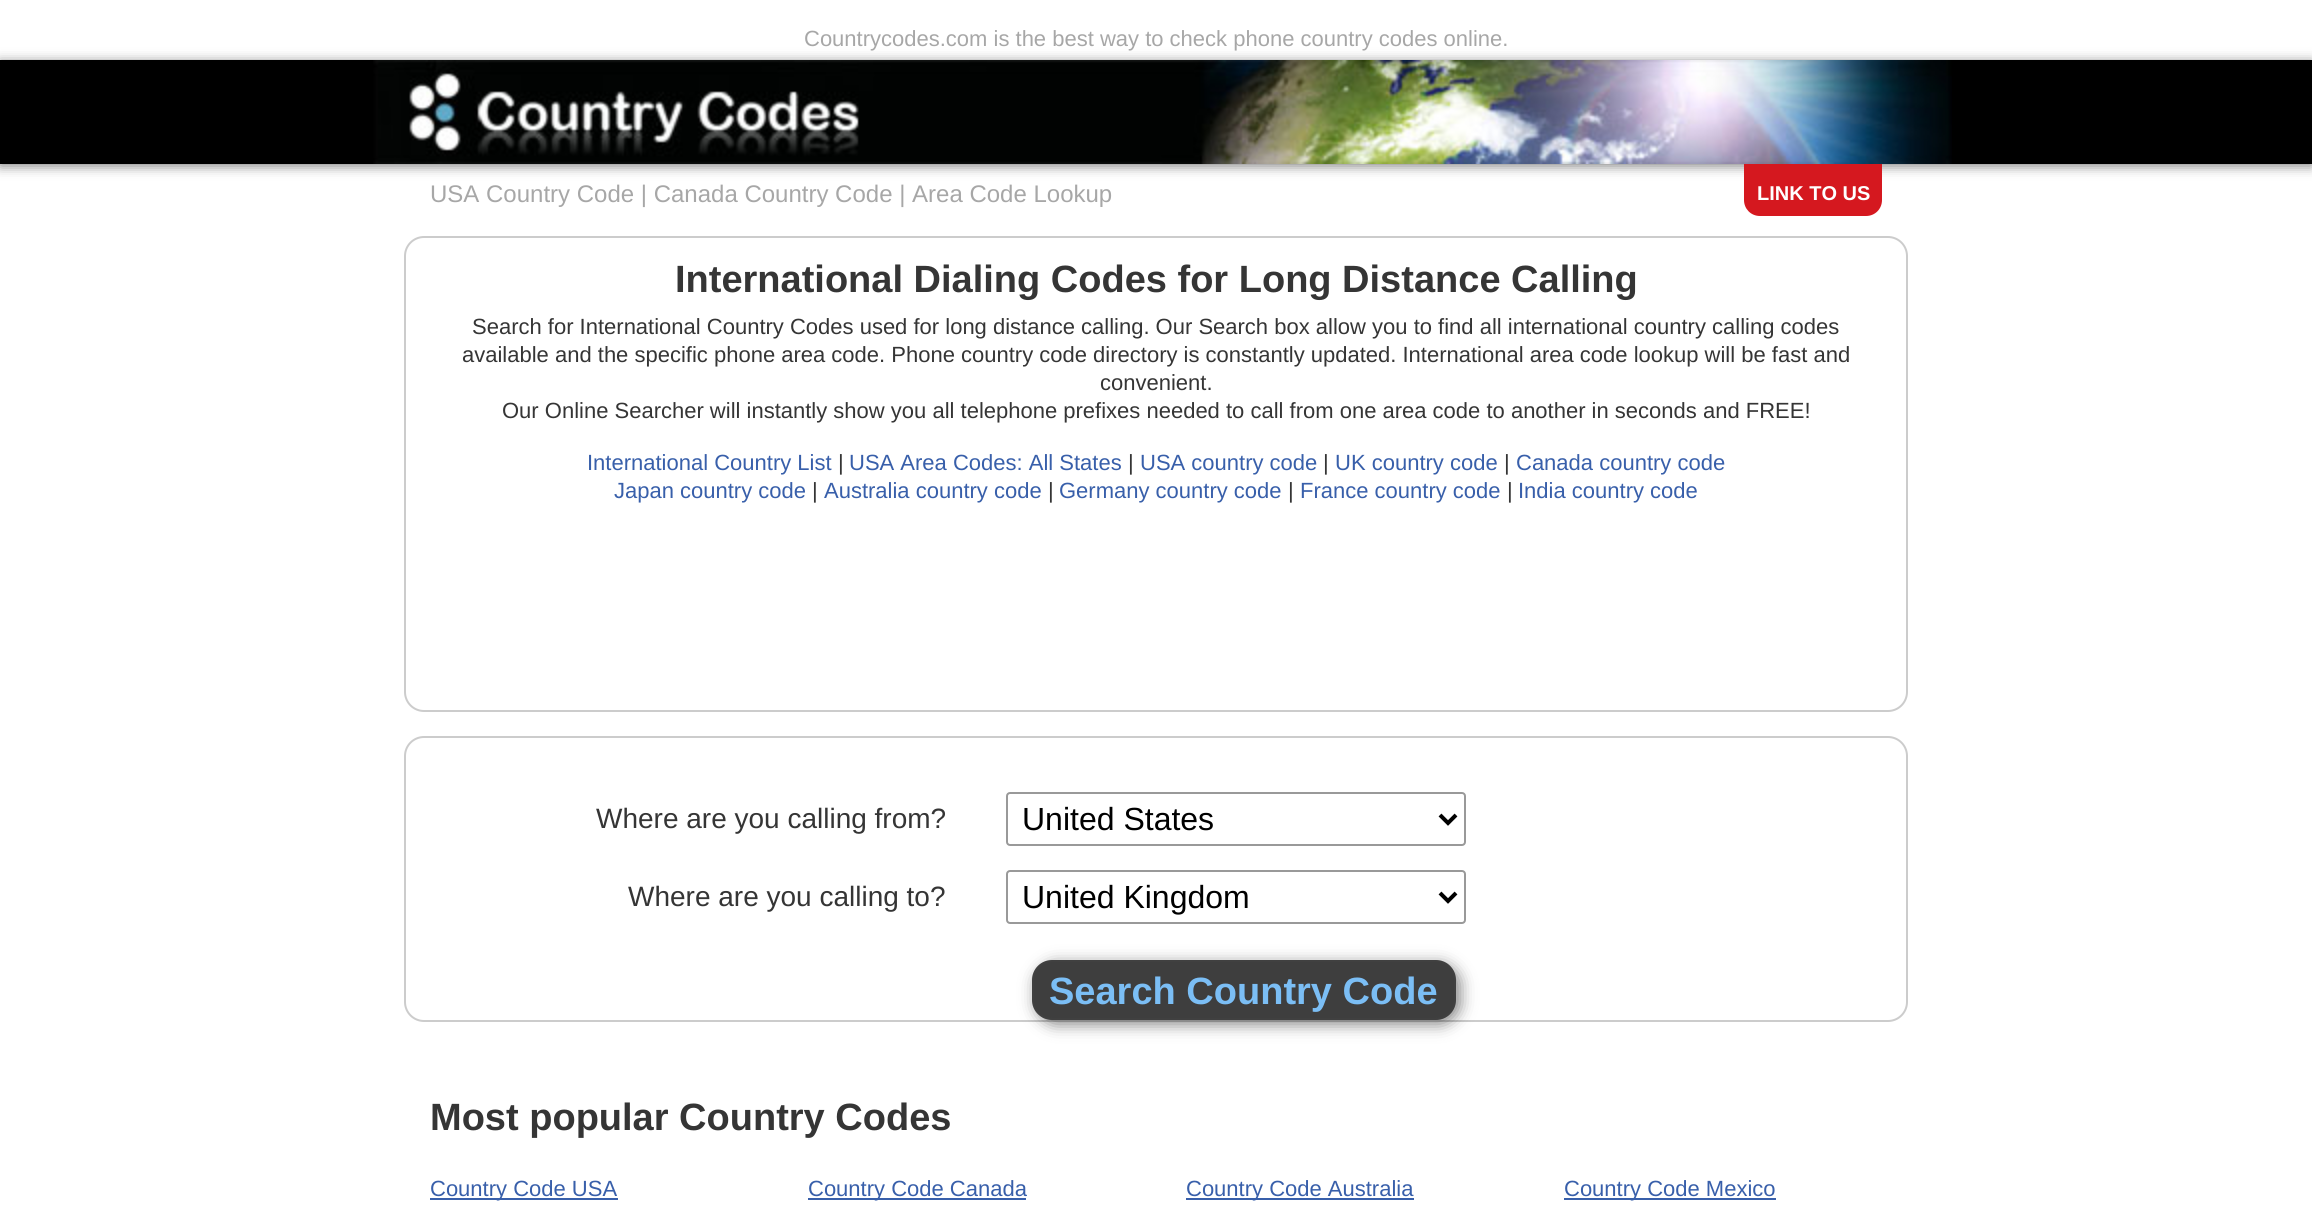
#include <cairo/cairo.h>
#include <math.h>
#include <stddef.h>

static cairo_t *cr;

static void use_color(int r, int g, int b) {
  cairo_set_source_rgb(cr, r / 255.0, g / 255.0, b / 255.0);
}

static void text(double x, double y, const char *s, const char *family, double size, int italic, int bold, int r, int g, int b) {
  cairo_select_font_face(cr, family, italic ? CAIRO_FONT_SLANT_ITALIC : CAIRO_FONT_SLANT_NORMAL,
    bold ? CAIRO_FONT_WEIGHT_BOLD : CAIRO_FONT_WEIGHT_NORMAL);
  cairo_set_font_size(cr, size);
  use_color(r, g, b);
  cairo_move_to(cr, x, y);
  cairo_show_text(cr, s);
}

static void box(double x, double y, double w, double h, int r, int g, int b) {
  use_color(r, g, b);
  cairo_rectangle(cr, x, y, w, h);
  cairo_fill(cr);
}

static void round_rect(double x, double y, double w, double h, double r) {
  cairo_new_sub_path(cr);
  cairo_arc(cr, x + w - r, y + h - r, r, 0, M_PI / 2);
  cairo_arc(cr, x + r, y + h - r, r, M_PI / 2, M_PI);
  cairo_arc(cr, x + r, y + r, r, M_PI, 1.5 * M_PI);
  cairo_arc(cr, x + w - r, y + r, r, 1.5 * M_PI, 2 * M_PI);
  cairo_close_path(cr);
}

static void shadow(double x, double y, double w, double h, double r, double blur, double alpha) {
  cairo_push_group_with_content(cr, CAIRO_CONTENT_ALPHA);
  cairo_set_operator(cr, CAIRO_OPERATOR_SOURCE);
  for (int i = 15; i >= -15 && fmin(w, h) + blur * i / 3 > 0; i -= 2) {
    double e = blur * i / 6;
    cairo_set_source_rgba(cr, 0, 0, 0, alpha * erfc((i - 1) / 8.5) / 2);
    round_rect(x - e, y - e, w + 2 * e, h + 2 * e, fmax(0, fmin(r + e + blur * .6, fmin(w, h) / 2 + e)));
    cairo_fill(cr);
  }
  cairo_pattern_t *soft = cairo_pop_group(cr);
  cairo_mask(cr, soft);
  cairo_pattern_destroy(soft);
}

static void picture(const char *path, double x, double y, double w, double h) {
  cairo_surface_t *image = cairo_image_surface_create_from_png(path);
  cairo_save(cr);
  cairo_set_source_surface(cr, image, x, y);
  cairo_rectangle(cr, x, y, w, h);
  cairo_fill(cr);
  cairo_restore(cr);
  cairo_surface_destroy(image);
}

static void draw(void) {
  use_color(255, 255, 255);
  cairo_paint(cr);
  use_color(0, 0, 0);
  shadow(0, 62, 2312, 104, 0, 6, 0.5);
  box(0, 60, 2312, 104, 0, 0, 0);
  picture("img_01.png", 373, 60, 1579, 104);
  use_color(213, 24, 31);
  cairo_new_path(cr);
  cairo_move_to(cr, 1744, 164);
  cairo_line_to(cr, 1882, 164);
  cairo_line_to(cr, 1882, 200);
  cairo_curve_to(cr, 1882, 209, 1875, 216, 1866, 216);
  cairo_line_to(cr, 1760, 216);
  cairo_curve_to(cr, 1751, 216, 1744, 209, 1744, 200);
  cairo_close_path(cr);
  cairo_fill(cr);
  round_rect(405, 237, 1502, 474, 19);
  use_color(204, 204, 204);
  cairo_stroke(cr);
  round_rect(405, 737, 1502, 284, 19);
  cairo_stroke(cr);
  round_rect(1007, 793, 458, 52, 3);
  use_color(153, 153, 153);
  cairo_stroke(cr);
  cairo_new_path(cr);
  cairo_move_to(cr, 1440, 815);
  cairo_line_to(cr, 1448, 823);
  cairo_line_to(cr, 1456, 815);
  use_color(0, 0, 0);
  cairo_set_line_width(cr, 4);
  cairo_stroke(cr);
  round_rect(1007, 871, 458, 52, 3);
  use_color(153, 153, 153);
  cairo_set_line_width(cr, 2);
  cairo_stroke(cr);
  cairo_new_path(cr);
  cairo_move_to(cr, 1440, 893);
  cairo_line_to(cr, 1448, 901);
  cairo_line_to(cr, 1456, 893);
  use_color(0, 0, 0);
  cairo_set_line_width(cr, 4);
  cairo_stroke(cr);
  use_color(0, 0, 0);
  shadow(1036, 964, 424, 60, 20, 8, 0.5);
  use_color(62, 62, 62);
  round_rect(1033, 961, 422, 58, 19);
  cairo_fill_preserve(cr);
  use_color(64, 64, 64);
  cairo_set_line_width(cr, 2);
  cairo_stroke(cr);
  box(430, 1198, 188, 2, 56, 95, 170);
  box(808, 1198, 218, 2, 56, 95, 170);
  box(1186, 1198, 228, 2, 56, 95, 170);
  box(1564, 1198, 212, 2, 56, 95, 170);
  text(804, 46, "Countrycodes.com is the best way to check phone country codes online.", "Liberation Sans", 22, 0, 0, 167, 167, 167);
  text(430, 202, "USA Country Code | Canada Country Code | Area Code Lookup", "Liberation Sans", 24, 0, 0, 167, 167, 167);
  text(1757, 200, "LINK TO US", "Liberation Sans", 20, 0, 1, 255, 255, 255);
  text(675, 292, "International Dialing Codes for Long Distance Calling", "Liberation Sans", 38, 0, 1, 53, 53, 53);
  text(472, 334, "Search for International Country Codes used for long distance calling. Our Search box allow you to find all international country calling codes", "Liberation Sans", 22, 0, 0, 53, 53, 53);
  text(462, 362, "available and the specific phone area code. Phone country code directory is constantly updated. International area code lookup will be fast and", "Liberation Sans", 22, 0, 0, 53, 53, 53);
  text(1100, 390, "convenient.", "Liberation Sans", 22, 0, 0, 53, 53, 53);
  text(502, 418, "Our Online Searcher will instantly show you all telephone prefixes needed to call from one area code to another in seconds and FREE!", "Liberation Sans", 22, 0, 0, 53, 53, 53);
  text(587, 470, "International Country List", "Liberation Sans", 22, 0, 0, 56, 95, 170);
  text(838, 470, "|", "Liberation Sans", 22, 0, 0, 53, 53, 53);
  text(849, 470, "USA Area Codes: All States", "Liberation Sans", 22, 0, 0, 56, 95, 170);
  text(1128, 470, "|", "Liberation Sans", 22, 0, 0, 53, 53, 53);
  text(1140, 470, "USA country code", "Liberation Sans", 22, 0, 0, 56, 95, 170);
  text(1323, 470, "|", "Liberation Sans", 22, 0, 0, 53, 53, 53);
  text(1335, 470, "UK country code", "Liberation Sans", 22, 0, 0, 56, 95, 170);
  text(1504, 470, "|", "Liberation Sans", 22, 0, 0, 53, 53, 53);
  text(1516, 470, "Canada country code", "Liberation Sans", 22, 0, 0, 56, 95, 170);
  text(614, 498, "Japan country code", "Liberation Sans", 22, 0, 0, 56, 95, 170);
  text(812, 498, "|", "Liberation Sans", 22, 0, 0, 53, 53, 53);
  text(824, 498, "Australia country code", "Liberation Sans", 22, 0, 0, 56, 95, 170);
  text(1048, 498, "|", "Liberation Sans", 22, 0, 0, 53, 53, 53);
  text(1059, 498, "Germany country code", "Liberation Sans", 22, 0, 0, 56, 95, 170);
  text(1288, 498, "|", "Liberation Sans", 22, 0, 0, 53, 53, 53);
  text(1300, 498, "France country code", "Liberation Sans", 22, 0, 0, 56, 95, 170);
  text(1507, 498, "|", "Liberation Sans", 22, 0, 0, 53, 53, 53);
  text(1518, 498, "India country code", "Liberation Sans", 22, 0, 0, 56, 95, 170);
  text(596, 828, "Where are you calling from?", "Liberation Sans", 28, 0, 0, 53, 53, 53);
  text(1022, 830, "United States", "Liberation Sans", 32, 0, 0, 0, 0, 0);
  text(628, 906, "Where are you calling to?", "Liberation Sans", 28, 0, 0, 53, 53, 53);
  text(1022, 908, "United Kingdom", "Liberation Sans", 32, 0, 0, 0, 0, 0);
  text(1049, 1004, "Search Country Code", "Liberation Sans", 38, 0, 1, 123, 190, 245);
  text(430, 1130, "Most popular Country Codes", "Liberation Sans", 38, 0, 1, 53, 53, 53);
  text(430, 1196, "Country Code USA", "Liberation Sans", 22, 0, 0, 56, 95, 170);
  text(808, 1196, "Country Code Canada", "Liberation Sans", 22, 0, 0, 56, 95, 170);
  text(1186, 1196, "Country Code Australia", "Liberation Sans", 22, 0, 0, 56, 95, 170);
  text(1564, 1196, "Country Code Mexico", "Liberation Sans", 22, 0, 0, 56, 95, 170);
}

int main(void) {
  cairo_surface_t *surface = cairo_image_surface_create(CAIRO_FORMAT_RGB24, 2312, 1206);
  cr = cairo_create(surface);
  cairo_font_options_t *options = cairo_font_options_create();
  cairo_font_options_set_hint_metrics(options, CAIRO_HINT_METRICS_OFF);
  cairo_font_options_set_hint_style(options, CAIRO_HINT_STYLE_NONE);
  cairo_set_font_options(cr, options);
  cairo_set_miter_limit(cr, 4);
  draw();
  cairo_surface_write_to_png(surface, "out.png");
  cairo_font_options_destroy(options);
  cairo_destroy(cr);
  cairo_surface_destroy(surface);
  return 0;
}
